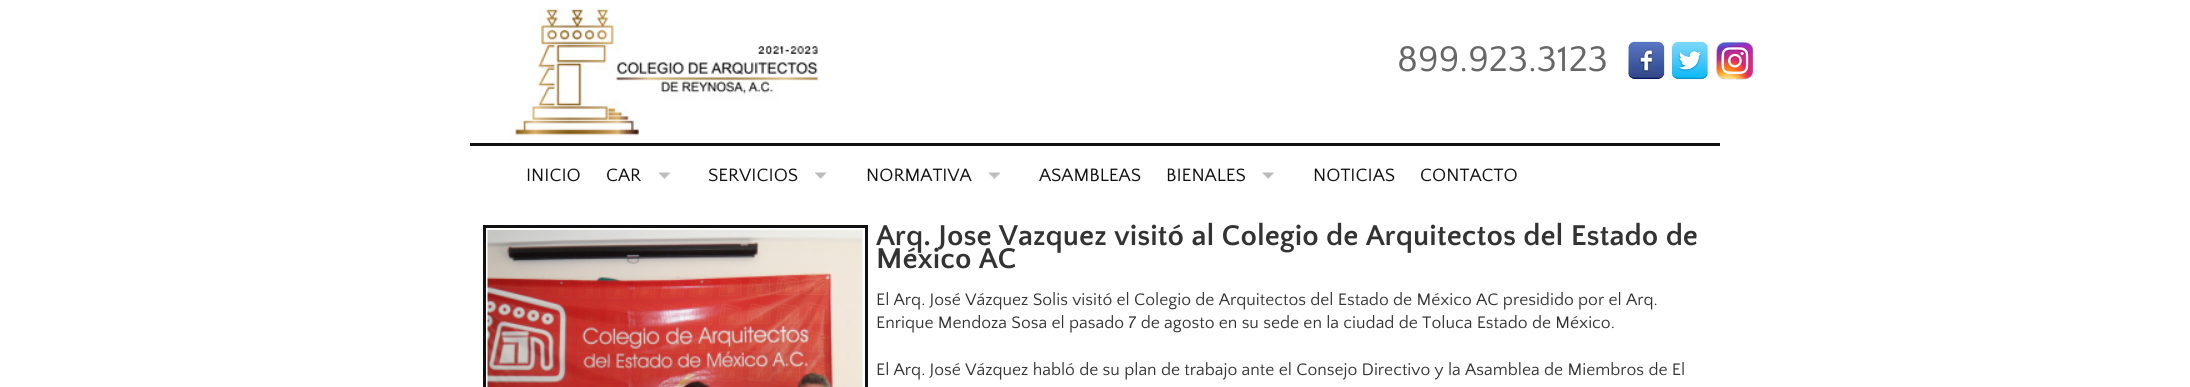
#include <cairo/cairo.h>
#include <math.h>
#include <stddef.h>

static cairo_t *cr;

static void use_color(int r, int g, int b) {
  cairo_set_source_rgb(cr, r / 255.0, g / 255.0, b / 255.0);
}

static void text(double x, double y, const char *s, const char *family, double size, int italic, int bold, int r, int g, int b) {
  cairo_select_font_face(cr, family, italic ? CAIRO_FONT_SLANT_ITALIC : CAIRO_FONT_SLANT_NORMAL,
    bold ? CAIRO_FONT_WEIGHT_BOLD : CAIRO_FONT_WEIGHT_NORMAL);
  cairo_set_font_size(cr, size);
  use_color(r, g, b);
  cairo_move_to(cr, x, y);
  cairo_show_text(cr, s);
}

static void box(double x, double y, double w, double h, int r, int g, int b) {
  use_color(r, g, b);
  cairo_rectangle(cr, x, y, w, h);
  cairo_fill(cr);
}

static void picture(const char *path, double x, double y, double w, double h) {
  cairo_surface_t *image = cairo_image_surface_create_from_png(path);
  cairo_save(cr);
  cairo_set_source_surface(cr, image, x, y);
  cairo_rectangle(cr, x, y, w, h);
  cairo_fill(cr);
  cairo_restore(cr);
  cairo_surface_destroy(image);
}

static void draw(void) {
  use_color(255, 255, 255);
  cairo_paint(cr);
  picture("img_01.png", 509, 8, 310, 132);
  picture("img_02.png", 1628, 41, 37, 39);
  picture("img_03.png", 1671, 41, 37, 39);
  picture("img_04.png", 1716, 42, 37, 38);
  box(470, 143, 1250, 3, 17, 17, 17);
  picture("img_05.png", 658, 172, 12, 7);
  picture("img_06.png", 815, 172, 12, 7);
  picture("img_07.png", 988, 172, 12, 7);
  picture("img_08.png", 1262, 172, 12, 7);
  cairo_rectangle(cr, 484.5, 226.5, 382, 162);
  cairo_set_line_width(cr, 3);
  cairo_stroke(cr);
  picture("img_09.png", 487, 230, 376, 157);
  text(1397, 71, "899.923.3123", "Quattrocento Sans", 37.5, 0, 0, 102, 102, 102);
  text(526, 181, "INICIO", "Quattrocento Sans", 18.75, 0, 0, 17, 17, 17);
  text(606, 181, "CAR", "Quattrocento Sans", 18.75, 0, 0, 17, 17, 17);
  text(708, 181, "SERVICIOS", "Quattrocento Sans", 18.75, 0, 0, 17, 17, 17);
  text(866, 181, "NORMATIVA", "Quattrocento Sans", 18.75, 0, 0, 17, 17, 17);
  text(1039, 181, "ASAMBLEAS", "Quattrocento Sans", 18.75, 0, 0, 17, 17, 17);
  text(1166, 181, "BIENALES", "Quattrocento Sans", 18.75, 0, 0, 17, 17, 17);
  text(1313, 181, "NOTICIAS", "Quattrocento Sans", 18.75, 0, 0, 17, 17, 17);
  text(1420, 181, "CONTACTO", "Quattrocento Sans", 18.75, 0, 0, 17, 17, 17);
  text(876, 245, "Arq. Jose Vazquez visitó al Colegio de Arquitectos del Estado de", "Quattrocento Sans", 30, 0, 1, 51, 51, 51);
  text(876, 268, "México AC", "Quattrocento Sans", 30, 0, 1, 51, 51, 51);
  text(876, 305, "El Arq. José Vázquez Solis visitó el Colegio de Arquitectos del Estado de México AC presidido por el Arq.", "Quattrocento Sans", 17.5, 0, 0, 51, 51, 51);
  text(876, 328, "Enrique Mendoza Sosa el pasado 7 de agosto en su sede en la ciudad de Toluca Estado de México.", "Quattrocento Sans", 17.5, 0, 0, 51, 51, 51);
  text(876, 375, "El Arq. José Vázquez habló de su plan de trabajo ante el Consejo Directivo y la Asamblea de Miembros de El", "Quattrocento Sans", 17.5, 0, 0, 51, 51, 51);
}

int main(void) {
  cairo_surface_t *surface = cairo_image_surface_create(CAIRO_FORMAT_RGB24, 2190, 387);
  cr = cairo_create(surface);
  cairo_font_options_t *options = cairo_font_options_create();
  cairo_font_options_set_hint_metrics(options, CAIRO_HINT_METRICS_OFF);
  cairo_font_options_set_hint_style(options, CAIRO_HINT_STYLE_NONE);
  cairo_set_font_options(cr, options);
  cairo_set_miter_limit(cr, 4);
  draw();
  cairo_surface_write_to_png(surface, "out.png");
  cairo_font_options_destroy(options);
  cairo_destroy(cr);
  cairo_surface_destroy(surface);
  return 0;
}
